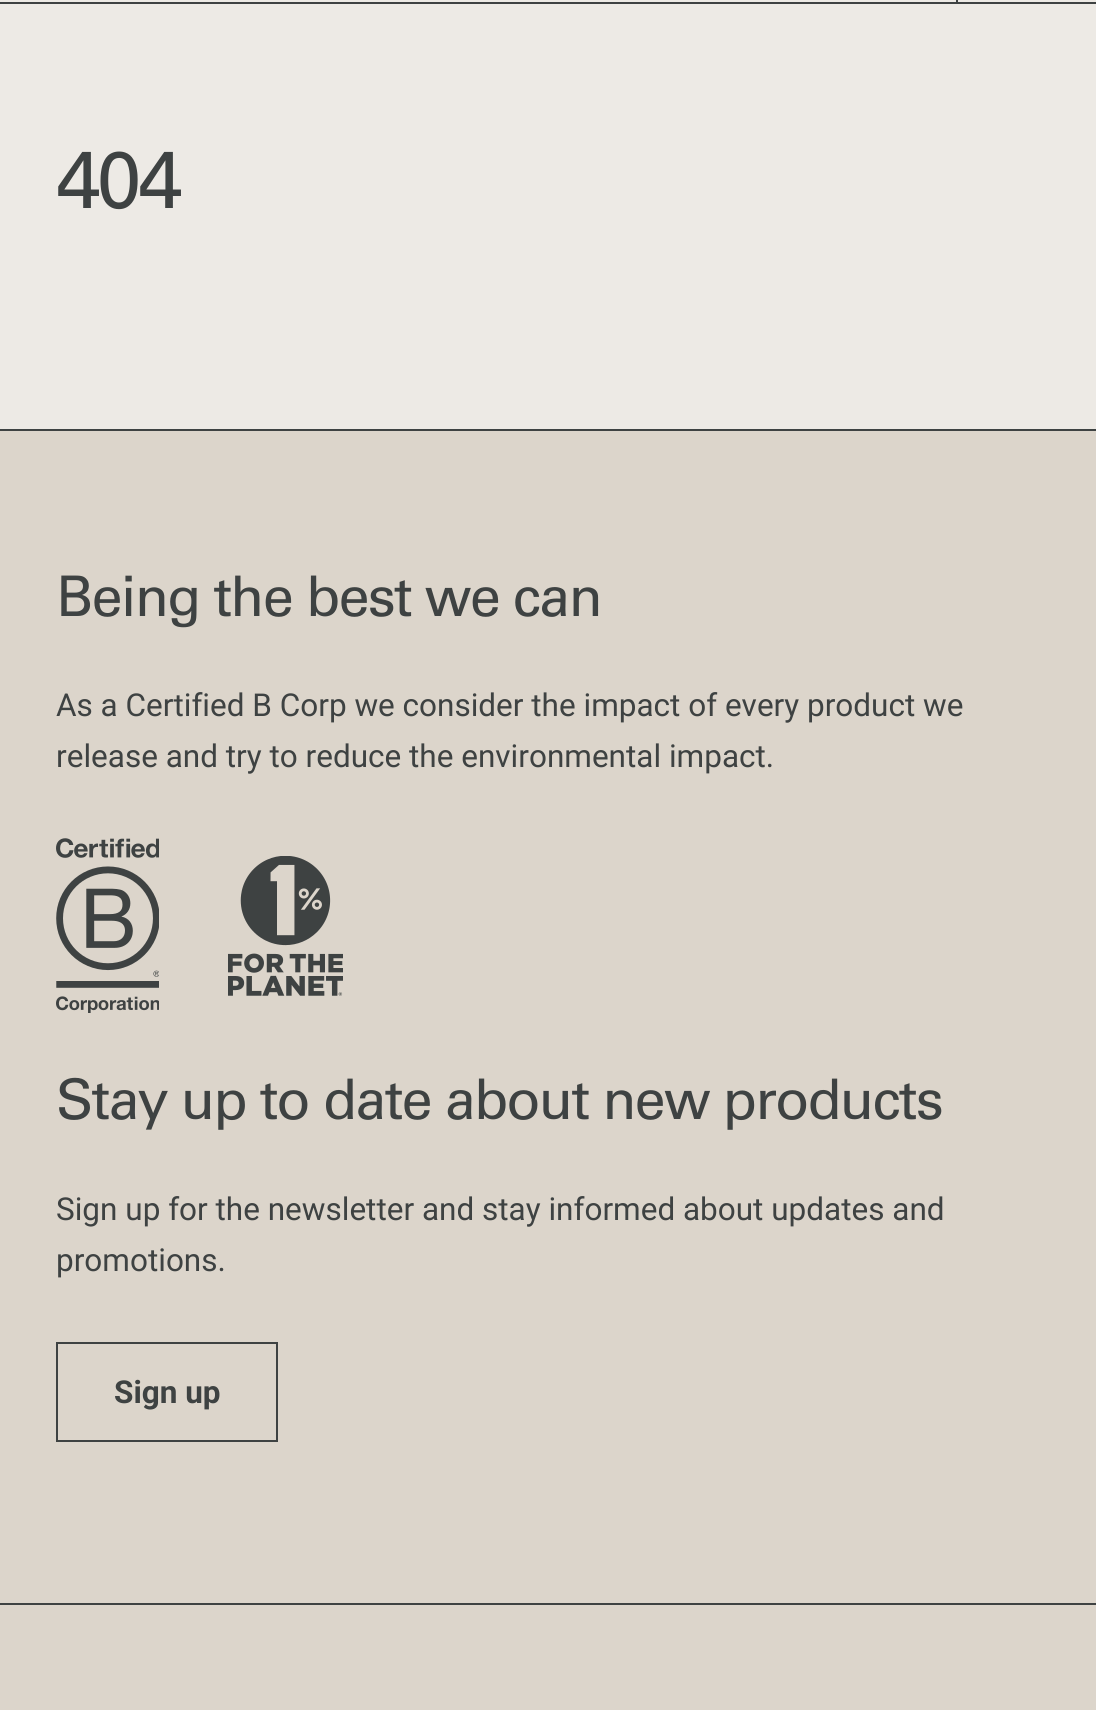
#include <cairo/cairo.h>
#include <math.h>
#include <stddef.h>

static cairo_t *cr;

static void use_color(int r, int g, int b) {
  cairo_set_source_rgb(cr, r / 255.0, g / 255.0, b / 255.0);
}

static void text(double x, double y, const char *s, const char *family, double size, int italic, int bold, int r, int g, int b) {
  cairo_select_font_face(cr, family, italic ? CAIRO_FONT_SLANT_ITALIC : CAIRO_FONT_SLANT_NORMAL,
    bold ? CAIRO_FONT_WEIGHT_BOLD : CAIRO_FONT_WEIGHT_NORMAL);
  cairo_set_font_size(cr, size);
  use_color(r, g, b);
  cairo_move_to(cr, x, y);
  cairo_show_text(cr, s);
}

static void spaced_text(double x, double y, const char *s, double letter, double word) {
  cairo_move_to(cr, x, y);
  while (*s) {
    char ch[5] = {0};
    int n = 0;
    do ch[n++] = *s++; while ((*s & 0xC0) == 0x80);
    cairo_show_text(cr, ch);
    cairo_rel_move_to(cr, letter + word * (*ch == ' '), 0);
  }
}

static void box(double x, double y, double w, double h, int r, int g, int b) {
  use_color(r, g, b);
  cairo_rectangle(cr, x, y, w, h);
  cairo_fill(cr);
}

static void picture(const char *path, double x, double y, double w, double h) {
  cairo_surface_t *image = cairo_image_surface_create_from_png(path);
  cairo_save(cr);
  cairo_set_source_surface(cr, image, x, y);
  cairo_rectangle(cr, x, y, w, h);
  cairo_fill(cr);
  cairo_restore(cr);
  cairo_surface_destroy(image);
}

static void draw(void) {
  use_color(237, 234, 229);
  cairo_paint(cr);
  box(0, 2, 1096, 2, 62, 66, 66);
  box(956, 0, 2, 2, 62, 66, 66);
  box(0, 431, 1096, 1279, 220, 213, 203);
  box(0, 429, 1096, 2, 62, 66, 66);
  picture("img_01.png", 56, 838, 103, 175);
  picture("img_02.png", 228, 856, 115, 140);
  cairo_rectangle(cr, 57, 1343, 220, 98);
  cairo_stroke(cr);
  box(0, 1603, 1096, 2, 62, 66, 66);
  cairo_select_font_face(cr, "Univers", CAIRO_FONT_SLANT_NORMAL, CAIRO_FONT_WEIGHT_NORMAL);
  cairo_set_font_size(cr, 80);
  spaced_text(56, 208, "404", -3.5, 0);
  cairo_set_font_size(cr, 56);
  spaced_text(56, 616, "Being the best we can", -1.75, 0);
  text(56, 716, "As a Certified B Corp we consider the impact of every product we", "Roboto", 31.5, 0, 0, 62, 66, 66);
  text(56, 767, "release and try to reduce the environmental impact.", "Roboto", 31.5, 0, 0, 62, 66, 66);
  cairo_select_font_face(cr, "Univers", CAIRO_FONT_SLANT_NORMAL, CAIRO_FONT_WEIGHT_NORMAL);
  cairo_set_font_size(cr, 56);
  spaced_text(56, 1119, "Stay up to date about new products", -1.75, 0);
  text(56, 1220, "Sign up for the newsletter and stay informed about updates and", "Roboto", 31.5, 0, 0, 62, 66, 66);
  text(56, 1271, "promotions.", "Roboto", 31.5, 0, 0, 62, 66, 66);
  text(114, 1403, "Sign up", "Roboto", 31.5, 0, 1, 62, 66, 66);
}

int main(void) {
  cairo_surface_t *surface = cairo_image_surface_create(CAIRO_FORMAT_RGB24, 1096, 1710);
  cr = cairo_create(surface);
  cairo_font_options_t *options = cairo_font_options_create();
  cairo_font_options_set_hint_metrics(options, CAIRO_HINT_METRICS_OFF);
  cairo_font_options_set_hint_style(options, CAIRO_HINT_STYLE_NONE);
  cairo_set_font_options(cr, options);
  cairo_set_miter_limit(cr, 4);
  draw();
  cairo_surface_write_to_png(surface, "out.png");
  cairo_font_options_destroy(options);
  cairo_destroy(cr);
  cairo_surface_destroy(surface);
  return 0;
}
